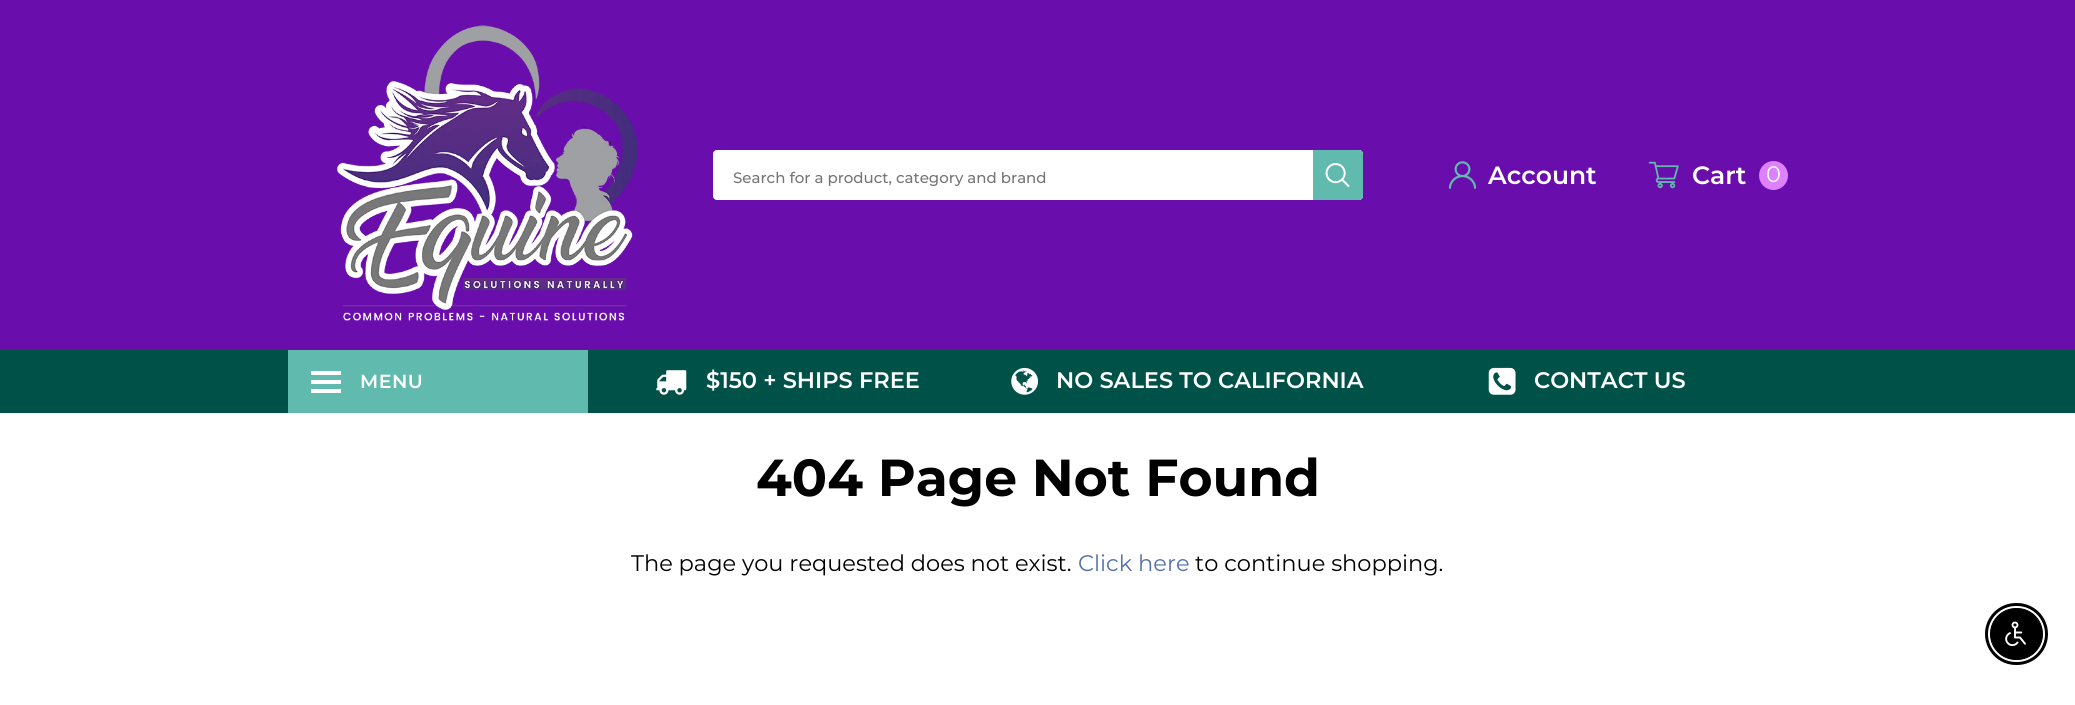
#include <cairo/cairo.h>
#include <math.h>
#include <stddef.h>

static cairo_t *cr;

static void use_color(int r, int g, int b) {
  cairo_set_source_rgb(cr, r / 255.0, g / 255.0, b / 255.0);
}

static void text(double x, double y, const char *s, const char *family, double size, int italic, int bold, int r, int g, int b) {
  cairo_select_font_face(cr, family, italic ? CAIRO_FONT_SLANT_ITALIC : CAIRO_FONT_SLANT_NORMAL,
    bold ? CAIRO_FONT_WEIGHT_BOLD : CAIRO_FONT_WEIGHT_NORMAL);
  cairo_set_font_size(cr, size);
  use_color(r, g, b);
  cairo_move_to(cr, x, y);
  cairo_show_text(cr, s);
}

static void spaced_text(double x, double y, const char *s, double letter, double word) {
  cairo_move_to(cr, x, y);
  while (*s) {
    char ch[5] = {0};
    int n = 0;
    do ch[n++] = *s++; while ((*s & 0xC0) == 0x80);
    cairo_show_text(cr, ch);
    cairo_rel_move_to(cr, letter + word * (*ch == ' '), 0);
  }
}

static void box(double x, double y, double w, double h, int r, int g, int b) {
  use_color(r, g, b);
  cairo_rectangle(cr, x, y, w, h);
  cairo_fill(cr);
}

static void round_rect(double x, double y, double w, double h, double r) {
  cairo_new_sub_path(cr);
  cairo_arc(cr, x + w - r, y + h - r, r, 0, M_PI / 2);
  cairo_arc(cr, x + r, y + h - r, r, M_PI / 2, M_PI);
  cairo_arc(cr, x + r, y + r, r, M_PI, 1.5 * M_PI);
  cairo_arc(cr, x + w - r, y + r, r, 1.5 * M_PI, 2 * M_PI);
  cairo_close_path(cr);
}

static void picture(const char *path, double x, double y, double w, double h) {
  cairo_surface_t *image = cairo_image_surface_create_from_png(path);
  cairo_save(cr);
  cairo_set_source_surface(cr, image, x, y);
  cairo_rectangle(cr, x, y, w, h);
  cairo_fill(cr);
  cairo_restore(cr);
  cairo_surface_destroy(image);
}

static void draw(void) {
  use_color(255, 255, 255);
  cairo_paint(cr);
  box(0, 0, 2075, 350, 106, 13, 173);
  picture("img_01.png", 337, 25, 301, 296);
  use_color(255, 255, 255);
  round_rect(713, 150, 650, 50, 4);
  cairo_fill(cr);
  use_color(97, 186, 174);
  cairo_new_path(cr);
  cairo_move_to(cr, 1313, 150);
  cairo_line_to(cr, 1359, 150);
  cairo_curve_to(cr, 1361, 150, 1363, 152, 1363, 154);
  cairo_line_to(cr, 1363, 196);
  cairo_curve_to(cr, 1363, 198, 1361, 200, 1359, 200);
  cairo_line_to(cr, 1313, 200);
  cairo_close_path(cr);
  cairo_fill(cr);
  picture("img_02.png", 1325, 163, 25, 24);
  picture("img_03.png", 1449, 161, 27, 28);
  picture("img_04.png", 1648, 161, 31, 28);
  use_color(221, 129, 255);
  cairo_arc(cr, 1773.5, 175.5, 14.5, 0, 2 * M_PI);
  cairo_fill(cr);
  box(0, 350, 2075, 63, 0, 82, 73);
  box(288, 350, 300, 63, 97, 186, 174);
  box(311, 380, 30, 4, 255, 255, 255);
  box(311, 371, 30, 4, 255, 255, 255);
  box(311, 389, 30, 4, 255, 255, 255);
  picture("img_05.png", 656, 370, 31, 25);
  picture("img_06.png", 1011, 367, 27, 28);
  picture("img_07.png", 1488, 367, 28, 28);
  round_rect(1986.5, 604.5, 60, 59, 29.5);
  use_color(0, 0, 0);
  cairo_set_line_width(cr, 3);
  cairo_stroke(cr);
  round_rect(1990.5, 608.5, 52, 51, 25.5);
  cairo_fill_preserve(cr);
  cairo_set_line_width(cr, 1);
  cairo_stroke(cr);
  picture("img_08.png", 2005, 621, 21, 26);
  text(733, 183, "Search for a product, category and brand", "Montserrat Medium", 15, 0, 0, 117, 117, 117);
  text(1488, 184, "Account", "Montserrat SemiBold", 25, 0, 0, 255, 255, 255);
  text(1692, 184, "Cart", "Montserrat SemiBold", 25, 0, 0, 255, 255, 255);
  text(1766, 182, "0", "Montserrat", 22.5, 0, 0, 255, 255, 255);
  cairo_select_font_face(cr, "Montserrat SemiBold", CAIRO_FONT_SLANT_NORMAL, CAIRO_FONT_WEIGHT_NORMAL);
  cairo_set_font_size(cr, 19);
  spaced_text(360, 388, "MENU", 0.5, 0);
  text(706, 388, "$150 + SHIPS FREE", "Montserrat SemiBold", 22.5, 0, 0, 255, 255, 255);
  text(1056, 388, "NO SALES TO CALIFORNIA", "Montserrat SemiBold", 22.5, 0, 0, 255, 255, 255);
  text(1534, 388, "CONTACT US", "Montserrat SemiBold", 22.5, 0, 0, 255, 255, 255);
  text(756, 496, "404 Page Not Found", "Montserrat", 52, 0, 1, 0, 0, 0);
  text(631, 571, "The page you requested does not exist.", "Montserrat", 22.5, 0, 0, 0, 0, 0);
  text(1078, 571, "Click here", "Montserrat", 22.5, 0, 0, 85, 114, 173);
  text(1195, 571, "to continue shopping.", "Montserrat", 22.5, 0, 0, 0, 0, 0);
}

int main(void) {
  cairo_surface_t *surface = cairo_image_surface_create(CAIRO_FORMAT_RGB24, 2075, 705);
  cr = cairo_create(surface);
  cairo_font_options_t *options = cairo_font_options_create();
  cairo_font_options_set_hint_metrics(options, CAIRO_HINT_METRICS_OFF);
  cairo_font_options_set_hint_style(options, CAIRO_HINT_STYLE_NONE);
  cairo_set_font_options(cr, options);
  cairo_set_miter_limit(cr, 4);
  draw();
  cairo_surface_write_to_png(surface, "out.png");
  cairo_font_options_destroy(options);
  cairo_destroy(cr);
  cairo_surface_destroy(surface);
  return 0;
}
